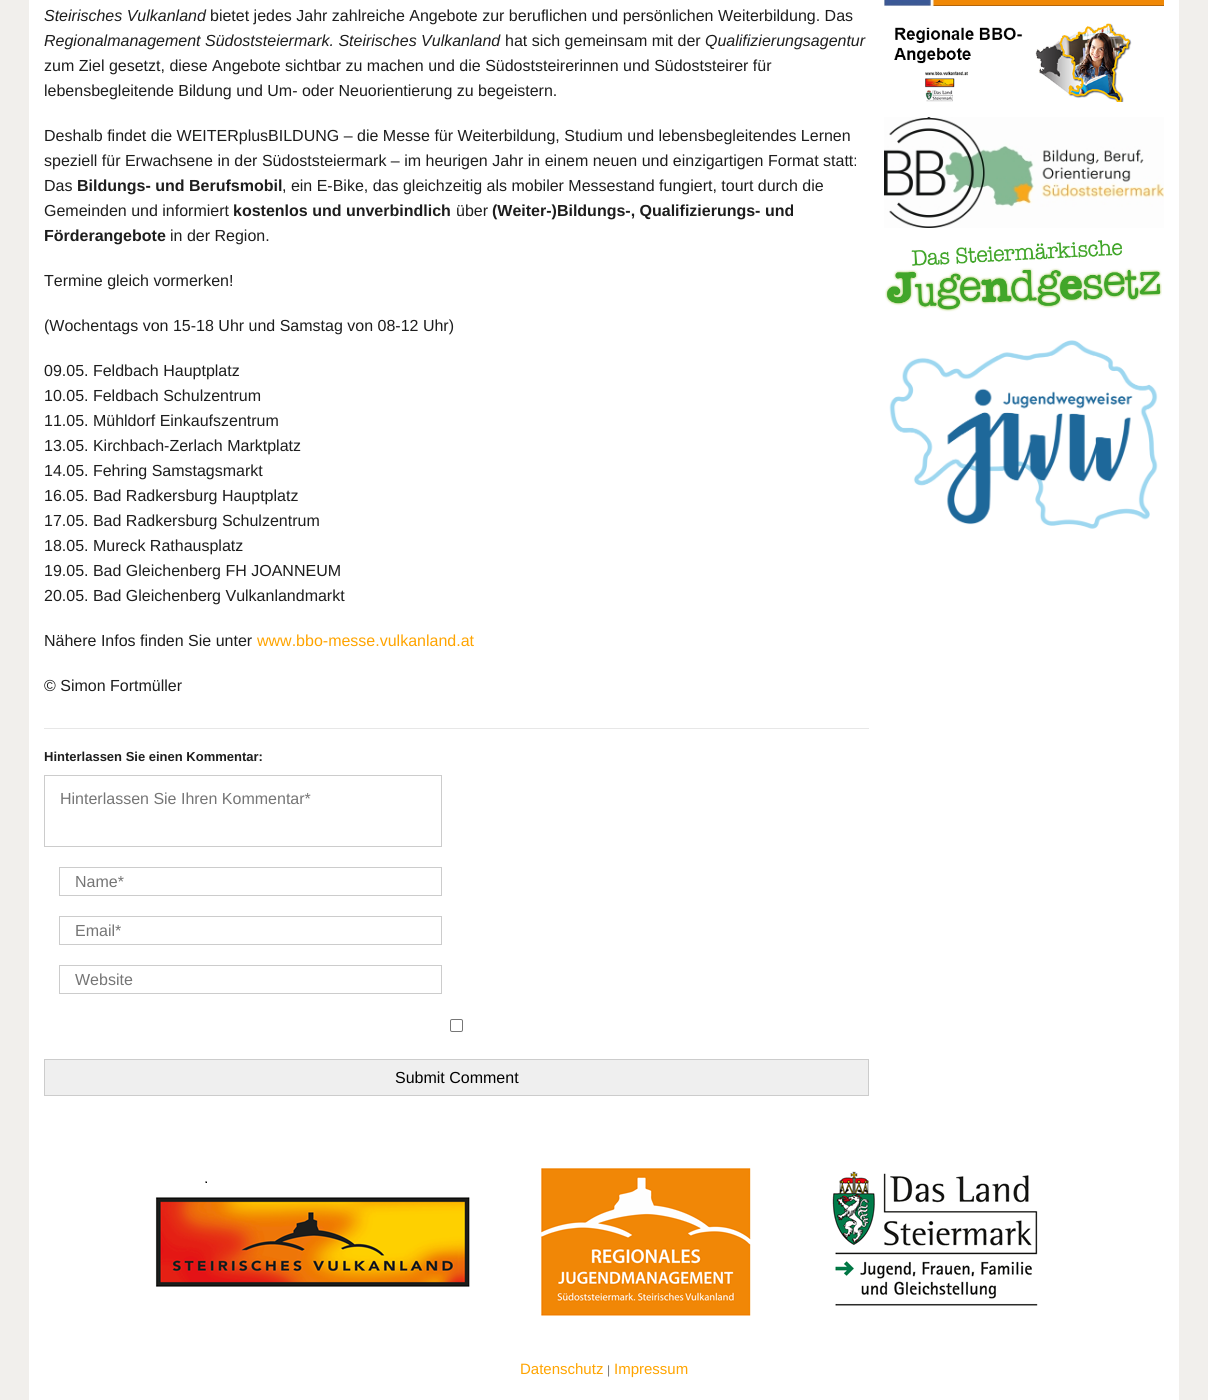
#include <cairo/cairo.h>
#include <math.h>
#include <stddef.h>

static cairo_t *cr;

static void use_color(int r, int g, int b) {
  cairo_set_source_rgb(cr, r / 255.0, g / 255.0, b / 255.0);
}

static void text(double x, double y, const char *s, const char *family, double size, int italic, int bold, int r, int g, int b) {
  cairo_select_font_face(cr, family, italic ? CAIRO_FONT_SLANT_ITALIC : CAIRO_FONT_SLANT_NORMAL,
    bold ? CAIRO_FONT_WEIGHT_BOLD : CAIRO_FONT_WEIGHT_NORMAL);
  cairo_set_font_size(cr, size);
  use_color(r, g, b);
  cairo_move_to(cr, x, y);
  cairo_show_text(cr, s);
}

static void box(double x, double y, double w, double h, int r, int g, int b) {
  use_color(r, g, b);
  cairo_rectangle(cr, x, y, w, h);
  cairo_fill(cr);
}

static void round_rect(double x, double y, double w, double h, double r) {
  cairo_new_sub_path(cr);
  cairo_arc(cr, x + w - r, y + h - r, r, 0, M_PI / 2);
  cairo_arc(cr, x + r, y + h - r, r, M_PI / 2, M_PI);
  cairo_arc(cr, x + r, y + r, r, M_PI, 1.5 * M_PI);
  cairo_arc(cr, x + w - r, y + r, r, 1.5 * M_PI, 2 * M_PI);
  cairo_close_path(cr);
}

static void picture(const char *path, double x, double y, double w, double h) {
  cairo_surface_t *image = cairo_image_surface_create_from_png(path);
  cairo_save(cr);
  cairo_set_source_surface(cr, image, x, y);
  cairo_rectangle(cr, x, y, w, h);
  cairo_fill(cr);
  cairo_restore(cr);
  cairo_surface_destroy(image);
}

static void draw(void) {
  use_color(241, 239, 236);
  cairo_paint(cr);
  box(29, 0, 1150, 1400, 255, 255, 255);
  box(44, 728, 825, 1, 231, 231, 231);
  cairo_rectangle(cr, 44.5, 775.5, 397, 71);
  use_color(204, 204, 204);
  cairo_set_line_width(cr, 1);
  cairo_stroke(cr);
  cairo_rectangle(cr, 59.5, 867.5, 382, 28);
  cairo_stroke(cr);
  cairo_rectangle(cr, 59.5, 916.5, 382, 28);
  cairo_stroke(cr);
  cairo_rectangle(cr, 59.5, 965.5, 382, 28);
  cairo_stroke(cr);
  round_rect(450.5, 1019.5, 12, 12, 1.5);
  use_color(118, 118, 118);
  cairo_stroke(cr);
  use_color(239, 239, 239);
  cairo_rectangle(cr, 44.5, 1059.5, 824, 36);
  cairo_fill_preserve(cr);
  use_color(204, 204, 204);
  cairo_stroke(cr);
  picture("img_01.png", 884, 0, 280, 6);
  picture("img_02.png", 894, 23, 238, 79);
  picture("img_03.png", 884, 117, 280, 111);
  picture("img_04.png", 885, 240, 277, 72);
  picture("img_05.png", 889, 340, 269, 189);
  picture("img_06.png", 155, 1168, 883, 148);
  text(44, 21, "Steirisches Vulkanland", "Liberation Sans", 16, 1, 0, 29, 29, 29);
  text(210, 21, "bietet jedes Jahr zahlreiche Angebote zur beruflichen und persönlichen Weiterbildung. Das", "Liberation Sans", 16, 0, 0, 29, 29, 29);
  text(44, 46, "Regionalmanagement Südoststeiermark. Steirisches Vulkanland", "Liberation Sans", 16, 1, 0, 29, 29, 29);
  text(505, 46, "hat sich gemeinsam mit der", "Liberation Sans", 16, 0, 0, 29, 29, 29);
  text(705, 46, "Qualifizierungsagentur", "Liberation Sans", 16, 1, 0, 29, 29, 29);
  text(44, 71, "zum Ziel gesetzt, diese Angebote sichtbar zu machen und die Südoststeirerinnen und Südoststeirer für", "Liberation Sans", 16, 0, 0, 29, 29, 29);
  text(44, 96, "lebensbegleitende Bildung und Um- oder Neuorientierung zu begeistern.", "Liberation Sans", 16, 0, 0, 29, 29, 29);
  text(44, 141, "Deshalb findet die WEITERplusBILDUNG – die Messe für Weiterbildung, Studium und lebensbegleitendes Lernen", "Liberation Sans", 16, 0, 0, 29, 29, 29);
  text(44, 166, "speziell für Erwachsene in der Südoststeiermark – im heurigen Jahr in einem neuen und einzigartigen Format statt:", "Liberation Sans", 16, 0, 0, 29, 29, 29);
  text(44, 191, "Das", "Liberation Sans", 16, 0, 0, 29, 29, 29);
  text(77, 191, "Bildungs- und Berufsmobil", "Liberation Sans", 16, 0, 1, 29, 29, 29);
  text(282, 191, ", ein E-Bike, das gleichzeitig als mobiler Messestand fungiert, tourt durch die", "Liberation Sans", 16, 0, 0, 29, 29, 29);
  text(44, 216, "Gemeinden und informiert", "Liberation Sans", 16, 0, 0, 29, 29, 29);
  text(233, 216, "kostenlos und unverbindlich", "Liberation Sans", 16, 0, 1, 29, 29, 29);
  text(456, 216, "über", "Liberation Sans", 16, 0, 0, 29, 29, 29);
  text(492, 216, "(Weiter-)Bildungs-, Qualifizierungs- und", "Liberation Sans", 16, 0, 1, 29, 29, 29);
  text(44, 241, "Förderangebote", "Liberation Sans", 16, 0, 1, 29, 29, 29);
  text(170, 241, "in der Region.", "Liberation Sans", 16, 0, 0, 29, 29, 29);
  text(44, 286, "Termine gleich vormerken!", "Liberation Sans", 16, 0, 0, 29, 29, 29);
  text(44, 331, "(Wochentags von 15-18 Uhr und Samstag von 08-12 Uhr)", "Liberation Sans", 16, 0, 0, 29, 29, 29);
  text(44, 376, "09.05. Feldbach Hauptplatz", "Liberation Sans", 16, 0, 0, 29, 29, 29);
  text(44, 401, "10.05. Feldbach Schulzentrum", "Liberation Sans", 16, 0, 0, 29, 29, 29);
  text(44, 426, "11.05. Mühldorf Einkaufszentrum", "Liberation Sans", 16, 0, 0, 29, 29, 29);
  text(44, 451, "13.05. Kirchbach-Zerlach Marktplatz", "Liberation Sans", 16, 0, 0, 29, 29, 29);
  text(44, 476, "14.05. Fehring Samstagsmarkt", "Liberation Sans", 16, 0, 0, 29, 29, 29);
  text(44, 501, "16.05. Bad Radkersburg Hauptplatz", "Liberation Sans", 16, 0, 0, 29, 29, 29);
  text(44, 526, "17.05. Bad Radkersburg Schulzentrum", "Liberation Sans", 16, 0, 0, 29, 29, 29);
  text(44, 551, "18.05. Mureck Rathausplatz", "Liberation Sans", 16, 0, 0, 29, 29, 29);
  text(44, 576, "19.05. Bad Gleichenberg FH JOANNEUM", "Liberation Sans", 16, 0, 0, 29, 29, 29);
  text(44, 601, "20.05. Bad Gleichenberg Vulkanlandmarkt", "Liberation Sans", 16, 0, 0, 29, 29, 29);
  text(44, 646, "Nähere Infos finden Sie unter", "Liberation Sans", 16, 0, 0, 29, 29, 29);
  text(257, 646, "www.bbo-messe.vulkanland.at", "Liberation Sans", 16, 0, 0, 255, 164, 0);
  text(44, 691, "© Simon Fortmüller", "Liberation Sans", 16, 0, 0, 29, 29, 29);
  text(44, 761, "Hinterlassen Sie einen Kommentar:", "Liberation Sans", 13, 0, 1, 29, 29, 29);
  text(60, 804, "Hinterlassen Sie Ihren Kommentar*", "Liberation Sans", 16, 0, 0, 117, 117, 117);
  text(75, 887, "Name*", "Liberation Sans", 16, 0, 0, 117, 117, 117);
  text(75, 936, "Email*", "Liberation Sans", 16, 0, 0, 117, 117, 117);
  text(75, 985, "Website", "Liberation Sans", 16, 0, 0, 117, 117, 117);
  text(395, 1083, "Submit Comment", "Liberation Sans", 16, 0, 0, 0, 0, 0);
  text(520, 1374, "Datenschutz", "Liberation Sans", 15, 0, 0, 255, 164, 0);
  text(607, 1374, "|", "Liberation Sans", 12, 0, 0, 117, 117, 117);
  text(614, 1374, "Impressum", "Liberation Sans", 15, 0, 0, 255, 164, 0);
}

int main(void) {
  cairo_surface_t *surface = cairo_image_surface_create(CAIRO_FORMAT_RGB24, 1208, 1400);
  cr = cairo_create(surface);
  cairo_font_options_t *options = cairo_font_options_create();
  cairo_font_options_set_hint_metrics(options, CAIRO_HINT_METRICS_OFF);
  cairo_font_options_set_hint_style(options, CAIRO_HINT_STYLE_NONE);
  cairo_set_font_options(cr, options);
  cairo_set_miter_limit(cr, 4);
  draw();
  cairo_surface_write_to_png(surface, "out.png");
  cairo_font_options_destroy(options);
  cairo_destroy(cr);
  cairo_surface_destroy(surface);
  return 0;
}
